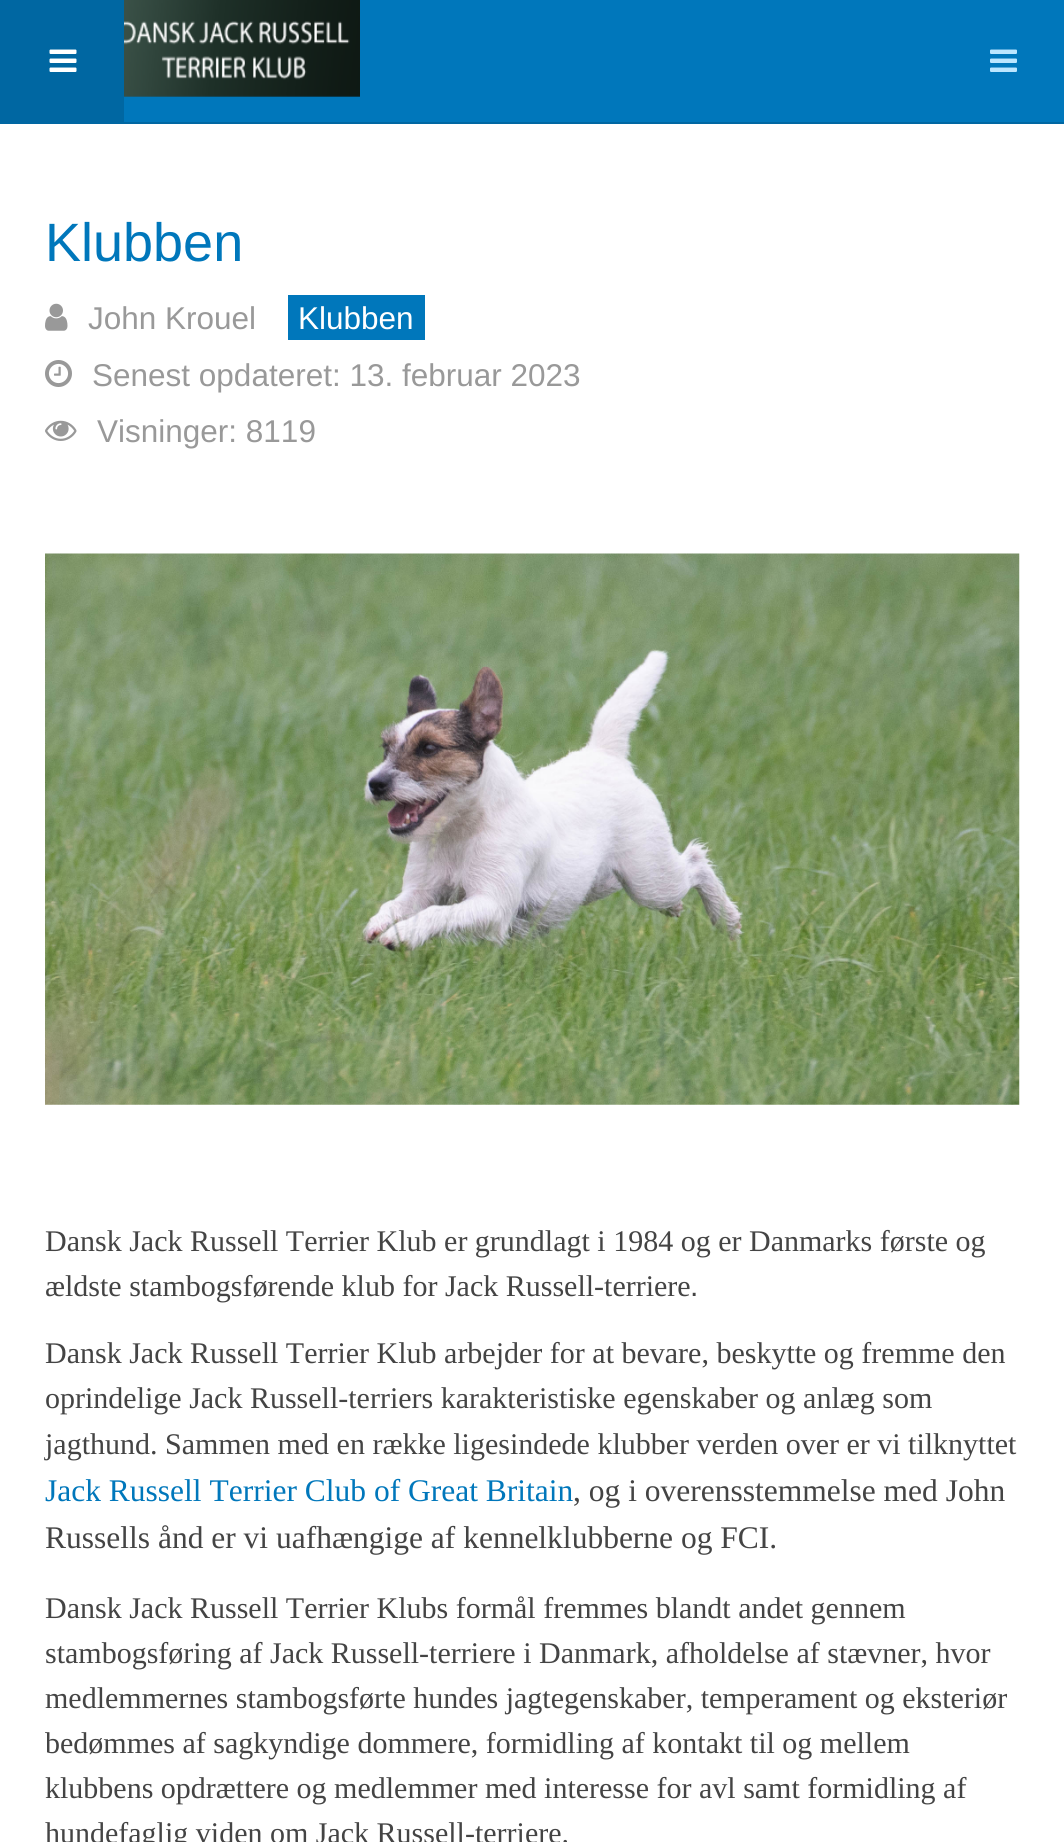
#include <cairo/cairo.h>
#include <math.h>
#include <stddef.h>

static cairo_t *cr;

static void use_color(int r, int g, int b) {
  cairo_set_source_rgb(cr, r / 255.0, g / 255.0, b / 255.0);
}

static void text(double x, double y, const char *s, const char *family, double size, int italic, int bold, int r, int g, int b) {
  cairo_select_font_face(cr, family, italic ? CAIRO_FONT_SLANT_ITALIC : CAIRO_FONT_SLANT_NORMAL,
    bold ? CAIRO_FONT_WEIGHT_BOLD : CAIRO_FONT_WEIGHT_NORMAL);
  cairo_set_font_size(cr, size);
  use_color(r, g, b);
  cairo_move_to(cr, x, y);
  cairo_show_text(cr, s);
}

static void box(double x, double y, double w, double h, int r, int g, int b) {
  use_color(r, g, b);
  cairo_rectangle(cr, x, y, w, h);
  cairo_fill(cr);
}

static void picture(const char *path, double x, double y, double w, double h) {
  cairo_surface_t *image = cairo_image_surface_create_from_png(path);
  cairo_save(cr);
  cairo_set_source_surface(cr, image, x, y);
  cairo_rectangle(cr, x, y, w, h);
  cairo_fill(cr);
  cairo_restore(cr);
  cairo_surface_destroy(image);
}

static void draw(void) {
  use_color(255, 255, 255);
  cairo_paint(cr);
  box(124, 0, 940, 122, 0, 119, 187);
  box(124, 122, 940, 2, 0, 103, 162);
  box(0, 0, 124, 124, 0, 103, 162);
  picture("img_01.png", 49, 49, 28, 23);
  picture("img_02.png", 124, 0, 236, 97);
  picture("img_03.png", 990, 49, 27, 23);
  picture("img_04.png", 45, 303, 23, 28);
  box(288, 295, 137, 45, 0, 119, 187);
  picture("img_05.png", 45, 360, 27, 27);
  picture("img_06.png", 45, 420, 32, 21);
  picture("img_07.png", 45, 553, 975, 552);
  text(45, 261, "Klubben", "Liberation Sans", 54, 0, 0, 0, 119, 187);
  text(88, 329, "John Krouel", "Liberation Sans", 31.5, 0, 0, 153, 153, 153);
  text(298, 329, "Klubben", "Liberation Sans", 31.5, 0, 0, 255, 255, 255);
  text(92, 386, "Senest opdateret: 13. februar 2023", "Liberation Sans", 31.5, 0, 0, 153, 153, 153);
  text(97, 442, "Visninger: 8119", "Liberation Sans", 31.5, 0, 0, 153, 153, 153);
  text(45, 1251, "Dansk Jack Russell Terrier Klub er grundlagt i 1984 og er Danmarks første og", "Liberation Serif", 30, 0, 0, 68, 68, 68);
  text(45, 1296, "ældste stambogsførende klub for Jack Russell-terriere", "Liberation Serif", 30, 0, 0, 68, 68, 68);
  text(690, 1296, ".", "Liberation Sans", 30, 0, 0, 68, 68, 68);
  text(45, 1363, "Dansk Jack Russell Terrier Klub arbejder for at bevare, beskytte og fremme den", "Liberation Serif", 30, 0, 0, 68, 68, 68);
  text(45, 1408, "oprindelige Jack Russell-terriers karakteristiske egenskaber og anlæg som", "Liberation Serif", 30, 0, 0, 68, 68, 68);
  text(45, 1454, "jagthund. Sammen med en række ligesindede klubber verden over er vi tilknyttet", "Liberation Serif", 30, 0, 0, 68, 68, 68);
  text(45, 1501, "Jack Russell Terrier Club of Great Britain", "Liberation Serif", 31.5, 0, 0, 0, 119, 187);
  text(573, 1501, ", og i overensstemmelse med John", "Liberation Serif", 31.5, 0, 0, 68, 68, 68);
  text(45, 1548, "Russells ånd er vi uafhængige af kennelklubberne og FCI.", "Liberation Serif", 31.5, 0, 0, 68, 68, 68);
  text(45, 1618, "Dansk Jack Russell Terrier Klubs formål fremmes blandt andet gennem", "Liberation Serif", 30, 0, 0, 68, 68, 68);
  text(45, 1663, "stambogsføring af Jack Russell-terriere i Danmark, afholdelse af stævner, hvor", "Liberation Serif", 30, 0, 0, 68, 68, 68);
  text(45, 1708, "medlemmernes stambogsførte hundes jagtegenskaber, temperament og eksteriør", "Liberation Serif", 30, 0, 0, 68, 68, 68);
  text(45, 1753, "bedømmes af sagkyndige dommere, formidling af kontakt til og mellem", "Liberation Serif", 30, 0, 0, 68, 68, 68);
  text(45, 1798, "klubbens opdrættere og medlemmer med interesse for avl samt formidling af", "Liberation Serif", 30, 0, 0, 68, 68, 68);
  text(45, 1843, "hundefaglig viden om Jack Russell-terriere.", "Liberation Serif", 30, 0, 0, 68, 68, 68);
}

int main(void) {
  cairo_surface_t *surface = cairo_image_surface_create(CAIRO_FORMAT_RGB24, 1064, 1842);
  cr = cairo_create(surface);
  cairo_font_options_t *options = cairo_font_options_create();
  cairo_font_options_set_hint_metrics(options, CAIRO_HINT_METRICS_OFF);
  cairo_font_options_set_hint_style(options, CAIRO_HINT_STYLE_NONE);
  cairo_set_font_options(cr, options);
  cairo_set_miter_limit(cr, 4);
  draw();
  cairo_surface_write_to_png(surface, "out.png");
  cairo_font_options_destroy(options);
  cairo_destroy(cr);
  cairo_surface_destroy(surface);
  return 0;
}
